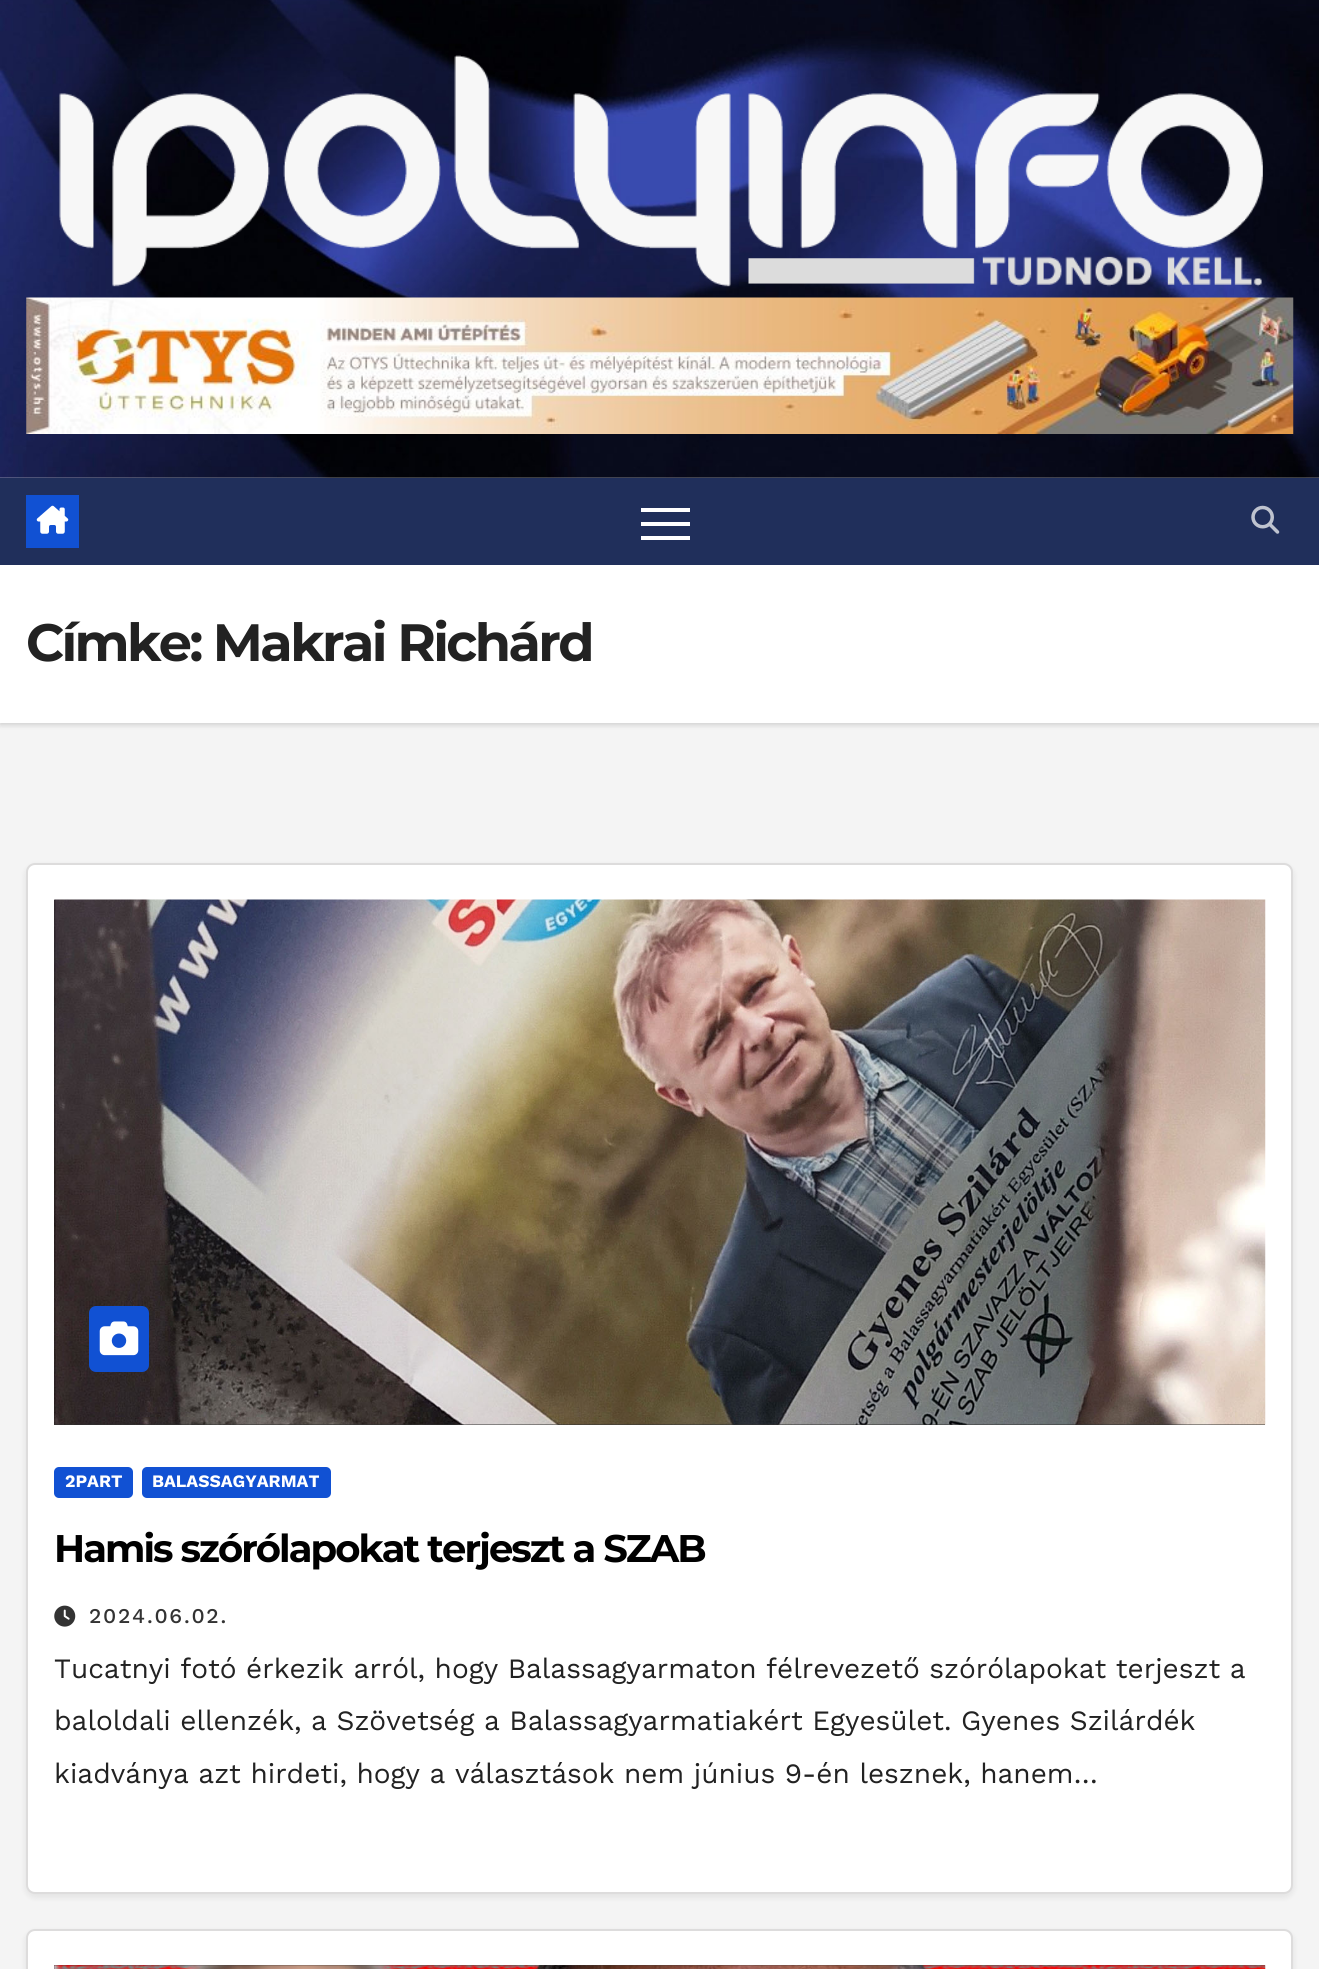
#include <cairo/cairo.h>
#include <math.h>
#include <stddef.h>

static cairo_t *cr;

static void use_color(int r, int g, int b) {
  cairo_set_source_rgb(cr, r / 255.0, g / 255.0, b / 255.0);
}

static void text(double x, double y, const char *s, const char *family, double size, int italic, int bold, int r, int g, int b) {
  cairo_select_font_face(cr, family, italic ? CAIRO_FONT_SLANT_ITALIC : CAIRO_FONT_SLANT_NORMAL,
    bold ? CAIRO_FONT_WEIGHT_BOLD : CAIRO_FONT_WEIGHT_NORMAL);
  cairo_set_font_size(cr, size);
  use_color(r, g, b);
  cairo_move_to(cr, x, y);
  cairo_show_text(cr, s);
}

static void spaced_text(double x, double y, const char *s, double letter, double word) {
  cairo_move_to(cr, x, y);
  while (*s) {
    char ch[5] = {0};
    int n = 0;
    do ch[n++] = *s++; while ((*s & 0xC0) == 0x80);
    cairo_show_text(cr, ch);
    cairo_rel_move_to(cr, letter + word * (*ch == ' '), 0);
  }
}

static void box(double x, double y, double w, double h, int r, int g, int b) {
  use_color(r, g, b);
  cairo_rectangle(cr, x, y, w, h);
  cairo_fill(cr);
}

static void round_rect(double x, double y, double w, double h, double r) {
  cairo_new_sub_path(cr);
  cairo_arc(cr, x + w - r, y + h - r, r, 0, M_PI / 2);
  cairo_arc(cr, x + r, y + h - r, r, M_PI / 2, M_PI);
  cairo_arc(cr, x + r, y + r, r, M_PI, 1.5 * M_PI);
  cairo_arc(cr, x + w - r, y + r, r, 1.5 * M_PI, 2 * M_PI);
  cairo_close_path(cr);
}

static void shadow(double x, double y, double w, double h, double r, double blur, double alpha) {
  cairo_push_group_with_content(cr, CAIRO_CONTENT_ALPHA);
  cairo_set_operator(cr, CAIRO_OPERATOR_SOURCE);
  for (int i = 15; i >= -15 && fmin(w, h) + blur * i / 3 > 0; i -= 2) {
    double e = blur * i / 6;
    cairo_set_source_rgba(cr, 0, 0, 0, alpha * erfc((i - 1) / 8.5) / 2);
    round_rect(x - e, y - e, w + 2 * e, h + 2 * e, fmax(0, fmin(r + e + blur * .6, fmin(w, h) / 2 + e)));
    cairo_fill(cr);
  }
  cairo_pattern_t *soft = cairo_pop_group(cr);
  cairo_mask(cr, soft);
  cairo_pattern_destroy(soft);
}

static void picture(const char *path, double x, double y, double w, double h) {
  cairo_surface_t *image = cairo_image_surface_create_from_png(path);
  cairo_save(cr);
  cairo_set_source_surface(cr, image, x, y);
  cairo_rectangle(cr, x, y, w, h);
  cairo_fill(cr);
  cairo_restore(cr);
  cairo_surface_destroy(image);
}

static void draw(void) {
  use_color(244, 244, 244);
  cairo_paint(cr);
  picture("img_01.png", 0, 0, 1319, 478);
  picture("img_02.png", 59, 55, 1204, 232);
  picture("img_03.png", 26, 297, 1268, 137);
  use_color(0, 0, 0);
  shadow(0, 567, 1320, 158, 0, 2.5, 0.15);
  box(0, 478, 1319, 87, 32, 47, 91);
  box(26, 495, 53, 53, 17, 81, 211);
  picture("img_04.png", 36, 505, 33, 29);
  box(641, 508, 49, 4, 255, 255, 255);
  box(641, 522, 49, 4, 255, 255, 255);
  box(641, 536, 49, 4, 255, 255, 255);
  picture("img_05.png", 1251, 505, 29, 29);
  box(0, 565, 1319, 158, 255, 255, 255);
  use_color(0, 0, 0);
  shadow(26, 866, 1267, 1031, 9, 3.5, 0.08);
  use_color(255, 255, 255);
  round_rect(27, 864, 1265, 1029, 8);
  cairo_fill_preserve(cr);
  use_color(221, 220, 220);
  cairo_stroke(cr);
  box(54, 900, 1211, 525, 51, 51, 51);
  picture("img_06.png", 54, 899, 1212, 526);
  use_color(17, 81, 211);
  round_rect(89, 1306, 60, 66, 7);
  cairo_fill(cr);
  picture("img_07.png", 99, 1321, 40, 35);
  round_rect(54, 1467, 79, 31, 5);
  cairo_fill(cr);
  round_rect(142, 1467, 189, 31, 5);
  cairo_fill(cr);
  picture("img_08.png", 54, 1605, 22, 22);
  use_color(0, 0, 0);
  shadow(26, 1932, 1267, 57, 9, 3.5, 0.08);
  use_color(255, 255, 255);
  round_rect(27, 1930, 1265, 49, 8);
  cairo_fill_preserve(cr);
  use_color(221, 220, 220);
  cairo_stroke(cr);
  box(54, 1965, 1211, 4, 51, 51, 51);
  picture("img_09.png", 54, 1965, 1212, 4);
  cairo_select_font_face(cr, "Montserrat", CAIRO_FONT_SLANT_NORMAL, CAIRO_FONT_WEIGHT_BOLD);
  cairo_set_font_size(cr, 52.5);
  use_color(34, 34, 34);
  spaced_text(26, 661, "Címke: Makrai Richárd", -2.6, 0);
  text(65, 1487, "2PART", "Work Sans", 17.5, 0, 1, 255, 255, 255);
  text(152, 1487, "BALASSAGYARMAT", "Work Sans", 17.5, 0, 1, 255, 255, 255);
  cairo_select_font_face(cr, "Montserrat", CAIRO_FONT_SLANT_NORMAL, CAIRO_FONT_WEIGHT_BOLD);
  cairo_set_font_size(cr, 38.5);
  use_color(0, 0, 0);
  spaced_text(54, 1562, "Hamis szórólapokat terjeszt a SZAB", -1.95, 0);
  cairo_select_font_face(cr, "Work Sans Medium", CAIRO_FONT_SLANT_NORMAL, CAIRO_FONT_WEIGHT_NORMAL);
  cairo_set_font_size(cr, 21);
  use_color(51, 51, 51);
  spaced_text(89, 1623, "2024.06.02.", 1.75, 0);
  text(54, 1678, "Tucatnyi fotó érkezik arról, hogy Balassagyarmaton félrevezető szórólapokat terjeszt a", "Work Sans", 28, 0, 0, 34, 34, 34);
  text(54, 1730, "baloldali ellenzék, a Szövetség a Balassagyarmatiakért Egyesület. Gyenes Szilárdék", "Work Sans", 28, 0, 0, 34, 34, 34);
  text(54, 1783, "kiadványa azt hirdeti, hogy a választások nem június 9-én lesznek, hanem…", "Work Sans", 28, 0, 0, 34, 34, 34);
}

int main(void) {
  cairo_surface_t *surface = cairo_image_surface_create(CAIRO_FORMAT_RGB24, 1319, 1969);
  cr = cairo_create(surface);
  cairo_font_options_t *options = cairo_font_options_create();
  cairo_font_options_set_hint_metrics(options, CAIRO_HINT_METRICS_OFF);
  cairo_font_options_set_hint_style(options, CAIRO_HINT_STYLE_NONE);
  cairo_set_font_options(cr, options);
  cairo_set_miter_limit(cr, 4);
  draw();
  cairo_surface_write_to_png(surface, "out.png");
  cairo_font_options_destroy(options);
  cairo_destroy(cr);
  cairo_surface_destroy(surface);
  return 0;
}
